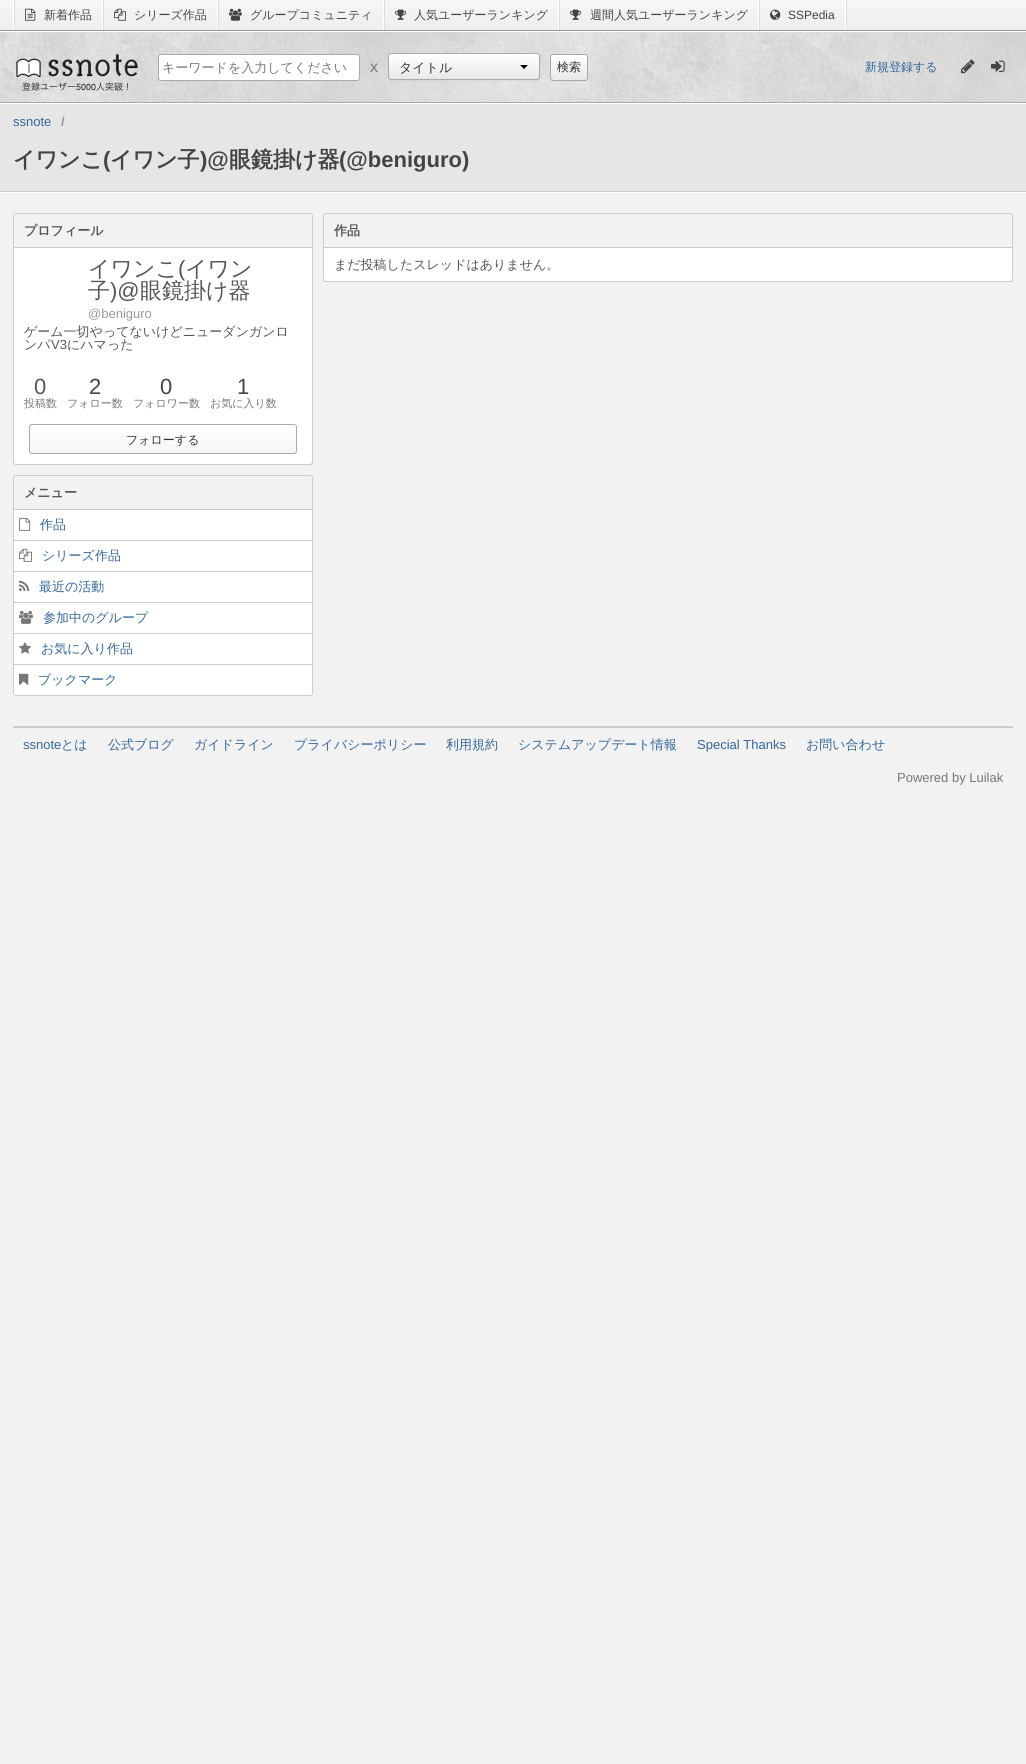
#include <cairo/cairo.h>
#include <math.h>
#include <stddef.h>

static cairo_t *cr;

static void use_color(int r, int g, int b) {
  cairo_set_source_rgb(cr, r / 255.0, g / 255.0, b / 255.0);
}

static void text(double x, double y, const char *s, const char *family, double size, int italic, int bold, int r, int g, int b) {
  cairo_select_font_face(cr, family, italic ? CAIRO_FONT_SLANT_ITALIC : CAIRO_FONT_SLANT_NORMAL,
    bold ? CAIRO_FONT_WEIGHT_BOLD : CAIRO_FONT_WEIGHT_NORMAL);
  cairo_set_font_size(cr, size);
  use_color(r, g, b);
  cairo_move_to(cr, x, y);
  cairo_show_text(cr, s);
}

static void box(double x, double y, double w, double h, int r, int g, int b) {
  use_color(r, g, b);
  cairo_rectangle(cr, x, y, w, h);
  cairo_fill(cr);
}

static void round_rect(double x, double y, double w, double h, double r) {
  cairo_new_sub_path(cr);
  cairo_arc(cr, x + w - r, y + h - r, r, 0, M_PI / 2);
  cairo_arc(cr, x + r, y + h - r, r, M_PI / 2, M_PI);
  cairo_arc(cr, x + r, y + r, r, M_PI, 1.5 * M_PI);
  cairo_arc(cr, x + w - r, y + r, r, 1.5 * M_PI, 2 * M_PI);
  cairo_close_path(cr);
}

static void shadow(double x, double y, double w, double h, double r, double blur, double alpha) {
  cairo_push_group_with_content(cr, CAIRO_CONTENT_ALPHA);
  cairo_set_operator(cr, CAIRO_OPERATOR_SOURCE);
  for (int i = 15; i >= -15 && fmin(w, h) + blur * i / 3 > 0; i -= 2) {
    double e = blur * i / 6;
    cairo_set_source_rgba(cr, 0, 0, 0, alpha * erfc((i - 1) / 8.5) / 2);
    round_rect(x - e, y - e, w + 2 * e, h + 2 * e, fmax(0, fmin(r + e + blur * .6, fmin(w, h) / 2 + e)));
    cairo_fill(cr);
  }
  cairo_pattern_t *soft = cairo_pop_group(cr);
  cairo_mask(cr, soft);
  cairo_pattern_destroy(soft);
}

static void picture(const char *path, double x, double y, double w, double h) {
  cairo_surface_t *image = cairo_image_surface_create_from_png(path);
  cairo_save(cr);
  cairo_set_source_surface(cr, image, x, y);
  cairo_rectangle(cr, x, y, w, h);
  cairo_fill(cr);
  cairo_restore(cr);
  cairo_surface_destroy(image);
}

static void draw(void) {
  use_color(242, 242, 242);
  cairo_paint(cr);
  picture("img_01.png", 0, 0, 1026, 30);
  box(0, 30, 1026, 1, 153, 153, 153);
  box(13, 0, 1, 30, 255, 255, 255);
  box(102, 0, 1, 30, 255, 255, 255);
  box(14, 0, 1, 30, 221, 221, 221);
  picture("img_02.png", 25, 8, 11, 13);
  box(217, 0, 1, 30, 255, 255, 255);
  box(103, 0, 1, 30, 221, 221, 221);
  picture("img_03.png", 114, 8, 12, 13);
  box(383, 0, 1, 30, 255, 255, 255);
  box(218, 0, 1, 30, 221, 221, 221);
  picture("img_04.png", 229, 8, 13, 13);
  box(558, 0, 1, 30, 255, 255, 255);
  box(384, 0, 1, 30, 221, 221, 221);
  picture("img_05.png", 395, 9, 12, 11);
  box(758, 0, 1, 30, 255, 255, 255);
  box(559, 0, 1, 30, 221, 221, 221);
  picture("img_05.png", 570, 9, 12, 11);
  box(846, 0, 1, 30, 221, 221, 221);
  box(845, 0, 1, 30, 255, 255, 255);
  box(759, 0, 1, 30, 221, 221, 221);
  picture("img_06.png", 770, 9, 11, 11);
  picture("img_07.png", 0, 32, 1026, 70);
  box(0, 31, 1026, 1, 254, 254, 254);
  box(0, 102, 1026, 1, 170, 170, 170);
  picture("img_08.png", 16, 54, 122, 37);
  use_color(255, 255, 255);
  round_rect(158.5, 54.5, 201, 26, 2.5);
  cairo_fill_preserve(cr);
  use_color(170, 170, 170);
  cairo_set_line_width(cr, 1);
  cairo_stroke(cr);
  use_color(0, 0, 0);
  shadow(388, 54, 152, 27, 3, 1, 0.05);
  picture("img_09.png", 388, 54, 152, 26);
  cairo_set_source_rgba(cr, 1, 1, 1, 0.2);
  cairo_new_path(cr);
  cairo_move_to(cr, 391, 55);
  cairo_line_to(cr, 537, 55);
  cairo_curve_to(cr, 538, 55, 539, 56, 539, 57);
  cairo_curve_to(cr, 539, 48, 516, 54, 513, 54);
  cairo_line_to(cr, 390, 54);
  cairo_curve_to(cr, 389, 55, 389, 56, 389, 57);
  cairo_curve_to(cr, 389, 56, 390, 55, 391, 55);
  cairo_close_path(cr);
  cairo_fill(cr);
  round_rect(388.5, 53.5, 151, 26, 2.5);
  use_color(170, 170, 170);
  cairo_stroke(cr);
  use_color(0, 0, 0);
  cairo_new_path(cr);
  cairo_move_to(cr, 520, 65);
  cairo_line_to(cr, 528, 65);
  cairo_line_to(cr, 524, 69);
  cairo_close_path(cr);
  cairo_fill(cr);
  picture("img_10.png", 551, 55, 37, 26);
  round_rect(550.5, 54.5, 37, 26, 2.5);
  use_color(170, 170, 170);
  cairo_stroke(cr);
  picture("img_11.png", 961, 59, 14, 15);
  picture("img_12.png", 991, 60, 14, 12);
  box(0, 104, 1026, 87, 230, 230, 230);
  box(0, 103, 1026, 1, 255, 255, 255);
  box(0, 192, 1026, 1, 254, 254, 254);
  box(0, 191, 1026, 1, 204, 204, 204);
  round_rect(13.5, 213.5, 299, 251, 2.5);
  cairo_stroke(cr);
  box(14, 247, 298, 1, 204, 204, 204);
  use_color(255, 255, 255);
  cairo_new_path(cr);
  cairo_move_to(cr, 14, 248);
  cairo_line_to(cr, 312, 248);
  cairo_line_to(cr, 312, 461);
  cairo_curve_to(cr, 312, 462.5, 310.5, 464, 309, 464);
  cairo_line_to(cr, 17, 464);
  cairo_curve_to(cr, 15.5, 464, 14, 462.5, 14, 461);
  cairo_close_path(cr);
  cairo_fill(cr);
  picture("img_13.png", 29, 424, 268, 30);
  round_rect(29.5, 424.5, 267, 29, 2.5);
  use_color(170, 170, 170);
  cairo_stroke(cr);
  round_rect(13.5, 475.5, 299, 220, 2.5);
  use_color(204, 204, 204);
  cairo_stroke(cr);
  box(14, 509, 298, 1, 204, 204, 204);
  box(14, 510, 298, 185, 255, 255, 255);
  box(14, 540, 298, 1, 204, 204, 204);
  picture("img_14.png", 19, 517, 12, 14);
  box(14, 571, 298, 1, 204, 204, 204);
  picture("img_15.png", 19, 548, 13, 14);
  box(14, 602, 298, 1, 204, 204, 204);
  picture("img_16.png", 19, 580, 11, 11);
  box(14, 633, 298, 1, 204, 204, 204);
  picture("img_17.png", 19, 610, 14, 14);
  box(14, 664, 298, 1, 204, 204, 204);
  picture("img_18.png", 19, 642, 12, 12);
  picture("img_19.png", 19, 673, 10, 12);
  round_rect(323.5, 213.5, 689, 68, 2.5);
  cairo_stroke(cr);
  box(324, 247, 688, 1, 204, 204, 204);
  use_color(255, 255, 255);
  cairo_new_path(cr);
  cairo_move_to(cr, 324, 248);
  cairo_line_to(cr, 1012, 248);
  cairo_line_to(cr, 1012, 278);
  cairo_curve_to(cr, 1012, 279.5, 1010.5, 281, 1009, 281);
  cairo_line_to(cr, 327, 281);
  cairo_curve_to(cr, 325.5, 281, 324, 279.5, 324, 278);
  cairo_close_path(cr);
  cairo_fill(cr);
  box(13, 726, 1000, 2, 204, 204, 204);
  text(44, 19, "新着作品", "WenQuanYi Zen Hei Medium", 12, 0, 0, 68, 68, 68);
  text(134, 19, "シリーズ作品", "WenQuanYi Zen Hei Medium", 12, 0, 0, 68, 68, 68);
  text(250, 19, "グループコミュニティ", "WenQuanYi Zen Hei Medium", 12, 0, 0, 68, 68, 68);
  text(414, 19, "人気ユーザーランキング", "WenQuanYi Zen Hei Medium", 12, 0, 0, 68, 68, 68);
  text(590, 19, "週間人気ユーザーランキング", "WenQuanYi Zen Hei Medium", 12, 0, 0, 68, 68, 68);
  text(788, 19, "SSPedia", "Liberation Sans", 12, 0, 0, 68, 68, 68);
  text(162, 72, "キーワードを入力してください", "WenQuanYi Zen Hei Medium", 13, 0, 0, 119, 119, 119);
  text(370, 72, "x", "Liberation Sans", 16, 0, 0, 119, 119, 119);
  text(399, 72, "タイトル", "WenQuanYi Zen Hei Medium", 13, 0, 0, 51, 51, 51);
  text(557, 71, "検索", "WenQuanYi Zen Hei Medium", 12, 0, 0, 51, 51, 51);
  text(865, 71, "新規登録する", "WenQuanYi Zen Hei Medium", 12, 0, 0, 51, 102, 153);
  text(13, 126, "ssnote", "Liberation Sans", 13, 0, 0, 51, 102, 153);
  text(61, 126, "/", "Liberation Sans", 13, 0, 1, 153, 153, 153);
  text(13, 167, "イワンこ", "WenQuanYi Zen Hei", 22, 0, 1, 68, 68, 68);
  text(103, 167, "(", "Liberation Sans", 22, 0, 1, 68, 68, 68);
  text(110, 167, "イワン子", "WenQuanYi Zen Hei", 22, 0, 1, 68, 68, 68);
  text(200, 167, ")@", "Liberation Sans", 22, 0, 1, 68, 68, 68);
  text(229, 167, "眼鏡掛け器", "WenQuanYi Zen Hei", 22, 0, 1, 68, 68, 68);
  text(339, 167, "(@beniguro)", "Liberation Sans", 22, 0, 1, 68, 68, 68);
  text(24, 235, "プロフィール", "WenQuanYi Zen Hei", 13, 0, 1, 85, 85, 85);
  text(88, 276, "イワンこ", "WenQuanYi Zen Hei Medium", 22, 0, 0, 85, 85, 85);
  text(178, 276, "(", "Liberation Sans", 22, 0, 0, 85, 85, 85);
  text(185, 276, "イワン", "WenQuanYi Zen Hei Medium", 22, 0, 0, 85, 85, 85);
  text(88, 298, "子", "WenQuanYi Zen Hei Medium", 22, 0, 0, 85, 85, 85);
  text(110, 298, ")@", "Liberation Sans", 22, 0, 0, 85, 85, 85);
  text(140, 298, "眼鏡掛け器", "WenQuanYi Zen Hei Medium", 22, 0, 0, 85, 85, 85);
  text(88, 318, "@beniguro", "Liberation Sans", 13, 0, 0, 153, 153, 153);
  text(24, 336, "ゲーム一切やってないけどニューダンガンロ", "WenQuanYi Zen Hei Medium", 13, 0, 0, 85, 85, 85);
  text(24, 349, "ンパ", "WenQuanYi Zen Hei Medium", 13, 0, 0, 85, 85, 85);
  text(51, 349, "V3", "Liberation Sans", 13, 0, 0, 85, 85, 85);
  text(67, 349, "にハマった", "WenQuanYi Zen Hei Medium", 13, 0, 0, 85, 85, 85);
  text(34, 394, "0", "Liberation Sans", 22, 0, 0, 85, 85, 85);
  text(24, 407, "投稿数", "WenQuanYi Zen Hei Medium", 11, 0, 0, 119, 119, 119);
  text(89, 394, "2", "Liberation Sans", 22, 0, 0, 68, 68, 68);
  text(67, 407, "フォロー数", "WenQuanYi Zen Hei Medium", 11, 0, 0, 119, 119, 119);
  text(160, 394, "0", "Liberation Sans", 22, 0, 0, 68, 68, 68);
  text(133, 407, "フォロワー数", "WenQuanYi Zen Hei Medium", 11, 0, 0, 119, 119, 119);
  text(237, 394, "1", "Liberation Sans", 22, 0, 0, 68, 68, 68);
  text(210, 407, "お気に入り数", "WenQuanYi Zen Hei Medium", 11, 0, 0, 119, 119, 119);
  text(126, 444, "フォローする", "WenQuanYi Zen Hei Medium", 12, 0, 0, 51, 51, 51);
  text(24, 497, "メニュー", "WenQuanYi Zen Hei", 13, 0, 1, 85, 85, 85);
  text(40, 529, "作品", "WenQuanYi Zen Hei Medium", 13, 0, 0, 51, 102, 153);
  text(42, 560, "シリーズ作品", "WenQuanYi Zen Hei Medium", 13, 0, 0, 51, 102, 153);
  text(39, 591, "最近の活動", "WenQuanYi Zen Hei Medium", 13, 0, 0, 51, 102, 153);
  text(43, 622, "参加中のグループ", "WenQuanYi Zen Hei Medium", 13, 0, 0, 51, 102, 153);
  text(41, 653, "お気に入り作品", "WenQuanYi Zen Hei Medium", 13, 0, 0, 51, 102, 153);
  text(38, 684, "ブックマーク", "WenQuanYi Zen Hei Medium", 13, 0, 0, 51, 102, 153);
  text(334, 235, "作品", "WenQuanYi Zen Hei", 13, 0, 1, 85, 85, 85);
  text(334, 269, "まだ投稿したスレッドはありません。", "WenQuanYi Zen Hei Medium", 13, 0, 0, 85, 85, 85);
  text(23, 749, "ssnote", "Liberation Sans", 13, 0, 0, 51, 102, 153);
  text(61, 749, "とは", "WenQuanYi Zen Hei Medium", 13, 0, 0, 51, 102, 153);
  text(108, 749, "公式ブログ", "WenQuanYi Zen Hei Medium", 13, 0, 0, 51, 102, 153);
  text(194, 749, "ガイドライン", "WenQuanYi Zen Hei Medium", 13, 0, 0, 51, 102, 153);
  text(294, 749, "プライバシーポリシー", "WenQuanYi Zen Hei Medium", 13, 0, 0, 51, 102, 153);
  text(446, 749, "利用規約", "WenQuanYi Zen Hei Medium", 13, 0, 0, 51, 102, 153);
  text(518, 749, "システムアップデート情報", "WenQuanYi Zen Hei Medium", 13, 0, 0, 51, 102, 153);
  text(697, 749, "Special Thanks", "Liberation Sans", 13, 0, 0, 51, 102, 153);
  text(806, 749, "お問い合わせ", "WenQuanYi Zen Hei Medium", 13, 0, 0, 51, 102, 153);
  text(897, 782, "Powered by Luilak", "Liberation Sans", 13, 0, 0, 119, 119, 119);
}

int main(void) {
  cairo_surface_t *surface = cairo_image_surface_create(CAIRO_FORMAT_RGB24, 1026, 1764);
  cr = cairo_create(surface);
  cairo_font_options_t *options = cairo_font_options_create();
  cairo_font_options_set_hint_metrics(options, CAIRO_HINT_METRICS_OFF);
  cairo_font_options_set_hint_style(options, CAIRO_HINT_STYLE_NONE);
  cairo_set_font_options(cr, options);
  cairo_set_miter_limit(cr, 4);
  draw();
  cairo_surface_write_to_png(surface, "out.png");
  cairo_font_options_destroy(options);
  cairo_destroy(cr);
  cairo_surface_destroy(surface);
  return 0;
}
